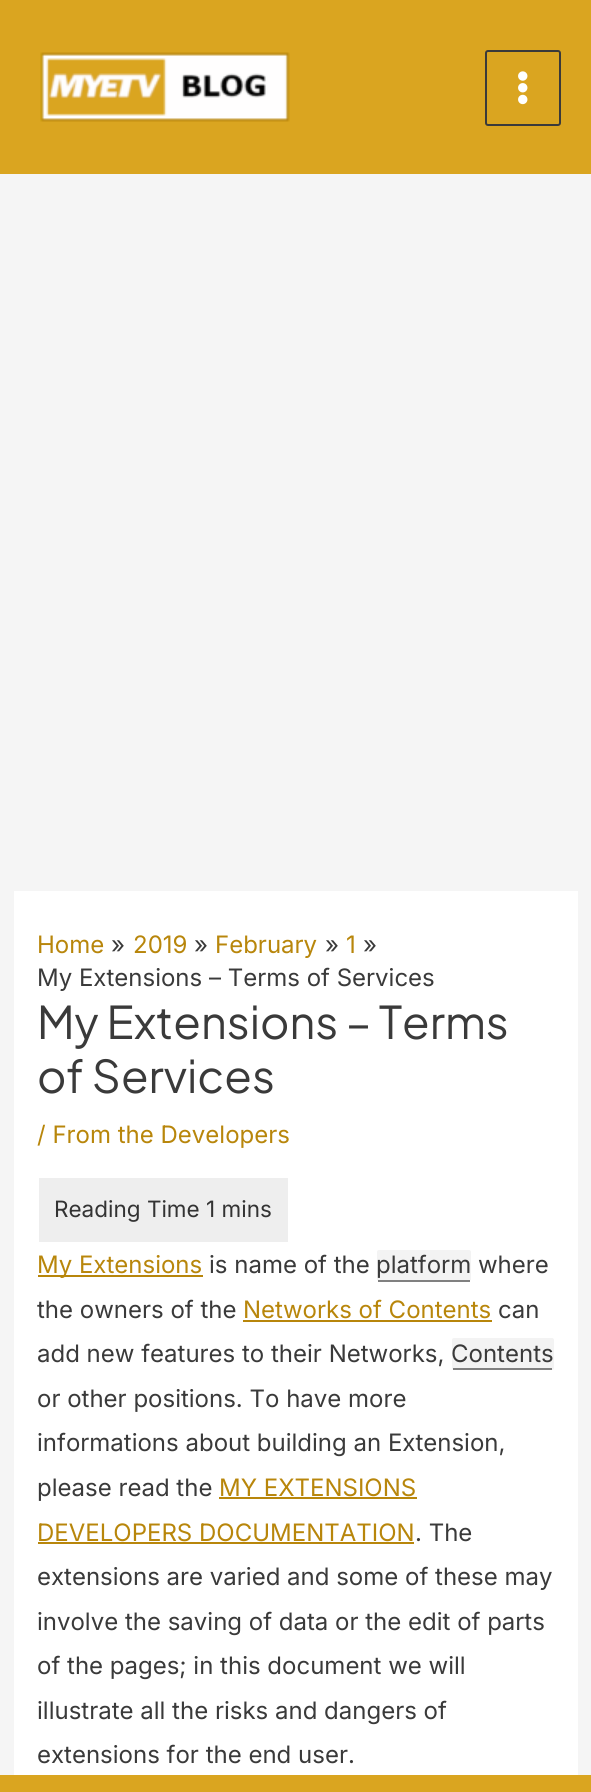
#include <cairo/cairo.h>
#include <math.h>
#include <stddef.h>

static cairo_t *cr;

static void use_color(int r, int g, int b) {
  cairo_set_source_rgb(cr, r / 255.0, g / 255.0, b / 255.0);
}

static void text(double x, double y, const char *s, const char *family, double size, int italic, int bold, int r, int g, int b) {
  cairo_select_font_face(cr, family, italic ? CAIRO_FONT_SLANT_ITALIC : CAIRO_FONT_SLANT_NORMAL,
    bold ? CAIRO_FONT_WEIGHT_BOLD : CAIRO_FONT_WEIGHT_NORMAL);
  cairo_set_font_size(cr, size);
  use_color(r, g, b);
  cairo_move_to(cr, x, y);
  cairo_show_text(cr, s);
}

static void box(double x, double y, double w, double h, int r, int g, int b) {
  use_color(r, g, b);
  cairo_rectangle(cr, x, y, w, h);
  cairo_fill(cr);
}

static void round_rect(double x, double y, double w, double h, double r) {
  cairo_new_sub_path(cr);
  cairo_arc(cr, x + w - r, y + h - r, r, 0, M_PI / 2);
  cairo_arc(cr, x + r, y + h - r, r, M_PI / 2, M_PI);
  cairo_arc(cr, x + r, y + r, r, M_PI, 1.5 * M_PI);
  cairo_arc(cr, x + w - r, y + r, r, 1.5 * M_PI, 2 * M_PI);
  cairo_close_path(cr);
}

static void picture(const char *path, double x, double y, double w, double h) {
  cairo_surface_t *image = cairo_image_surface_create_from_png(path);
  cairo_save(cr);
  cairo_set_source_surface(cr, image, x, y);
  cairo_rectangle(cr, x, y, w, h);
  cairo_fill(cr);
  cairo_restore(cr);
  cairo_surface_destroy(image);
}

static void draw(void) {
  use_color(245, 245, 245);
  cairo_paint(cr);
  box(0, 0, 591, 174, 218, 165, 32);
  picture("img_01.png", 40, 52, 250, 70);
  round_rect(486, 51, 74, 74, 2);
  use_color(58, 58, 58);
  cairo_stroke(cr);
  picture("img_02.png", 518, 71, 10, 34);
  box(14, 891, 564, 884, 255, 255, 255);
  box(39, 1178, 249, 64, 238, 238, 238);
  box(38, 1275, 165, 2, 184, 134, 11);
  use_color(243, 243, 243);
  round_rect(377, 1250, 94, 31, 2);
  cairo_fill(cr);
  box(378, 1280, 92, 2, 128, 128, 128);
  box(243, 1320, 249, 2, 184, 134, 11);
  use_color(243, 243, 243);
  round_rect(452, 1338, 102, 32, 2);
  cairo_fill(cr);
  box(453, 1368, 99, 2, 128, 128, 128);
  box(219, 1497, 198, 2, 184, 134, 11);
  box(38, 1542, 376, 2, 184, 134, 11);
  box(0, 1775, 591, 17, 218, 165, 32);
  text(37, 953, "Home", "Inter", 24, 0, 0, 184, 134, 11);
  text(111, 953, "»", "Inter", 24, 0, 0, 58, 58, 58);
  text(133, 953, "2019", "Inter", 24, 0, 0, 184, 134, 11);
  text(194, 953, "»", "Inter", 24, 0, 0, 58, 58, 58);
  text(215, 953, "February", "Inter", 24, 0, 0, 184, 134, 11);
  text(325, 953, "»", "Inter", 24, 0, 0, 58, 58, 58);
  text(346, 953, "1", "Inter", 24, 0, 0, 184, 134, 11);
  text(363, 953, "»", "Inter", 24, 0, 0, 58, 58, 58);
  text(37, 986, "My Extensions – Terms of Services", "Inter", 24, 0, 0, 58, 58, 58);
  text(37, 1039, "My Extensions – Terms", "Plus Jakarta Sans", 45, 0, 0, 58, 58, 58);
  text(37, 1093, "of Services", "Plus Jakarta Sans", 45, 0, 0, 58, 58, 58);
  text(37, 1143, "/ From the Developers", "Inter", 24, 0, 0, 184, 134, 11);
  text(54, 1217, "Reading Time 1 mins", "Inter", 22.5, 0, 0, 51, 51, 51);
  text(37, 1273, "My Extensions", "Inter", 24, 0, 0, 184, 134, 11);
  text(209, 1273, "is name of the", "Inter", 24, 0, 0, 58, 58, 58);
  text(376, 1273, "platform where", "Inter", 24, 0, 0, 58, 58, 58);
  text(37, 1318, "the owners of the", "Inter", 24, 0, 0, 58, 58, 58);
  text(243, 1318, "Networks of Contents", "Inter", 24, 0, 0, 184, 134, 11);
  text(498, 1318, "can", "Inter", 24, 0, 0, 58, 58, 58);
  text(37, 1362, "add new features to their Networks,", "Inter", 24, 0, 0, 58, 58, 58);
  text(451, 1362, "Contents", "Inter", 24, 0, 0, 58, 58, 58);
  text(37, 1407, "or other positions. To have more", "Inter", 24, 0, 0, 58, 58, 58);
  text(37, 1451, "informations about building an Extension,", "Inter", 24, 0, 0, 58, 58, 58);
  text(37, 1496, "please read the", "Inter", 24, 0, 0, 58, 58, 58);
  text(219, 1496, "MY EXTENSIONS", "Inter", 24, 0, 0, 184, 134, 11);
  text(37, 1541, "DEVELOPERS DOCUMENTATION", "Inter", 24, 0, 0, 184, 134, 11);
  text(415, 1541, ". The", "Inter", 24, 0, 0, 58, 58, 58);
  text(37, 1585, "extensions are varied and some of these may", "Inter", 24, 0, 0, 58, 58, 58);
  text(37, 1630, "involve the saving of data or the edit of parts", "Inter", 24, 0, 0, 58, 58, 58);
  text(37, 1674, "of the pages; in this document we will", "Inter", 24, 0, 0, 58, 58, 58);
  text(37, 1719, "illustrate all the risks and dangers of", "Inter", 24, 0, 0, 58, 58, 58);
  text(37, 1763, "extensions for the end user.", "Inter", 24, 0, 0, 58, 58, 58);
}

int main(void) {
  cairo_surface_t *surface = cairo_image_surface_create(CAIRO_FORMAT_RGB24, 591, 1792);
  cr = cairo_create(surface);
  cairo_font_options_t *options = cairo_font_options_create();
  cairo_font_options_set_hint_metrics(options, CAIRO_HINT_METRICS_OFF);
  cairo_font_options_set_hint_style(options, CAIRO_HINT_STYLE_NONE);
  cairo_set_font_options(cr, options);
  cairo_set_miter_limit(cr, 4);
  draw();
  cairo_surface_write_to_png(surface, "out.png");
  cairo_font_options_destroy(options);
  cairo_destroy(cr);
  cairo_surface_destroy(surface);
  return 0;
}
